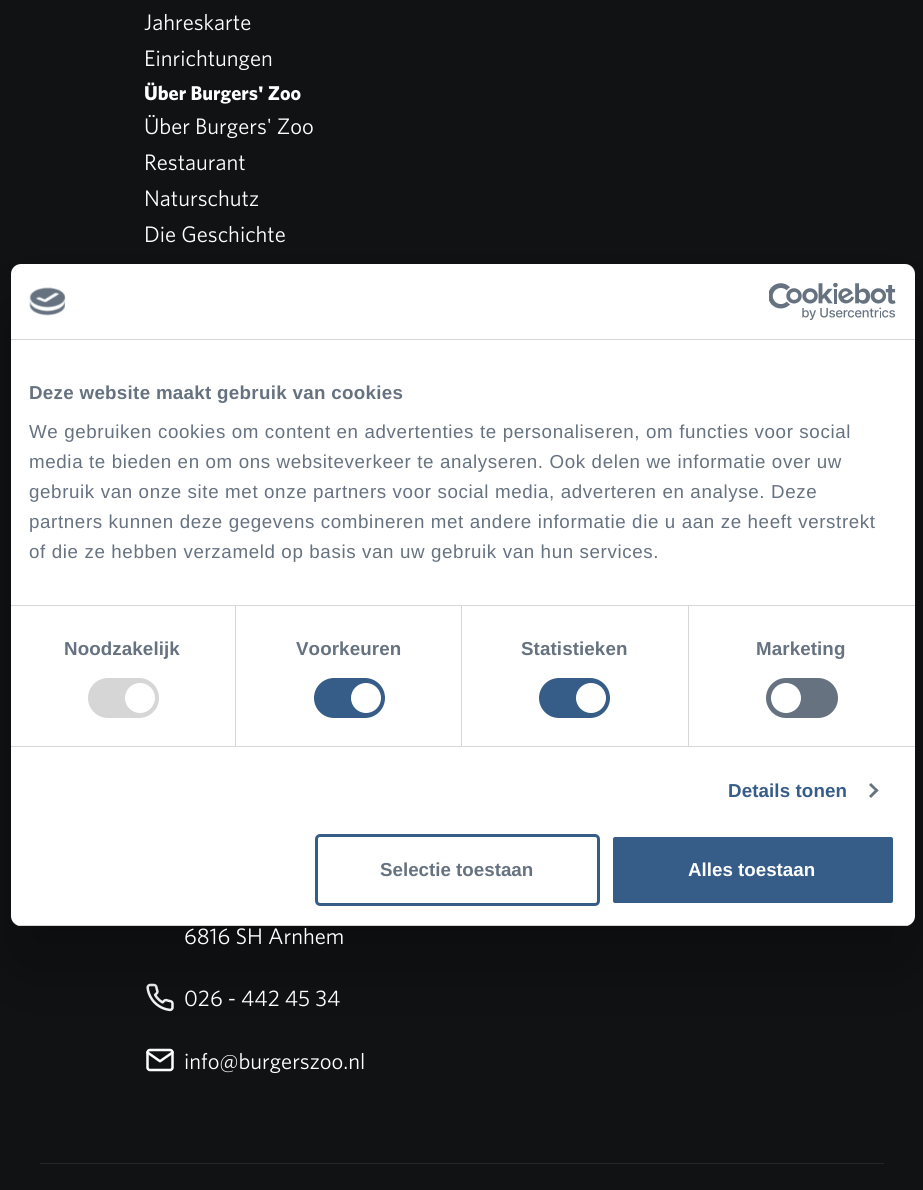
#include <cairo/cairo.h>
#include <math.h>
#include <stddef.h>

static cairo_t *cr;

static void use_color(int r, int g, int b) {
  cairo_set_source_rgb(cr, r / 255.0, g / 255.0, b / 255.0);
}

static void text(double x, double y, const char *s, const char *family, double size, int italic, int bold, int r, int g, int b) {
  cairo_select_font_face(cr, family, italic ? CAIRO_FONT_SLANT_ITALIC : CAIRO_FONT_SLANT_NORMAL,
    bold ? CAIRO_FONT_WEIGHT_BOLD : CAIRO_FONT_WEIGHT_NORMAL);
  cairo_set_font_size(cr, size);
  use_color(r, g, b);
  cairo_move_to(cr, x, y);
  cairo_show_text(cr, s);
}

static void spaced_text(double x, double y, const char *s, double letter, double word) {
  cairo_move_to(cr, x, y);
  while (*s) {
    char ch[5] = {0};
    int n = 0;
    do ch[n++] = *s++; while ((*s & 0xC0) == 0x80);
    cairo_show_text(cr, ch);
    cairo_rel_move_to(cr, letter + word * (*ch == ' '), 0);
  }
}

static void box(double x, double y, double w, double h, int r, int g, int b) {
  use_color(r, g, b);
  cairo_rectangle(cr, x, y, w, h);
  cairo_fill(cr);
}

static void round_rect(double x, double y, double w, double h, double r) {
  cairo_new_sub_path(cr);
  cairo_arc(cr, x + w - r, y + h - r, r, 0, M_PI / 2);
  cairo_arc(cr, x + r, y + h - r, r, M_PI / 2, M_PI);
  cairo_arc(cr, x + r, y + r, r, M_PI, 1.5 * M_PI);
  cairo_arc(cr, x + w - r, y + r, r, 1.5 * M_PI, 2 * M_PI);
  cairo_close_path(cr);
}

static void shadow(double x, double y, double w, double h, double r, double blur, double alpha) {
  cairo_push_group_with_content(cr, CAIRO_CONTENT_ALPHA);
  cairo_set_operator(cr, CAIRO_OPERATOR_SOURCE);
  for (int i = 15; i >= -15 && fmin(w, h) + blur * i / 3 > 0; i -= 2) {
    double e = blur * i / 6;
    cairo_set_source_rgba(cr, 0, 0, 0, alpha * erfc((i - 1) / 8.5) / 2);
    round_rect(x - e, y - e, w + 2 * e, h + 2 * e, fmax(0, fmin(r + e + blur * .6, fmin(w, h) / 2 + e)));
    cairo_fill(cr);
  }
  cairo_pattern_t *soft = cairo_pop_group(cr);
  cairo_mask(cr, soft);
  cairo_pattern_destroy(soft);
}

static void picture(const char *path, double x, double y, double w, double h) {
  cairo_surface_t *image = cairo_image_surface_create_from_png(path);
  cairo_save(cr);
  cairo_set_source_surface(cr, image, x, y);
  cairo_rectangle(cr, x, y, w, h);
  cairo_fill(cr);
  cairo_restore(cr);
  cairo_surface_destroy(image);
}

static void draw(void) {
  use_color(16, 18, 20);
  cairo_paint(cr);
  picture("img_01.png", 146, 983, 28, 29);
  picture("img_02.png", 146, 1048, 28, 24);
  box(40, 1163, 844, 1, 36, 38, 40);
  use_color(0, 0, 0);
  shadow(11, 304, 904, 662, 10, 42.5, 0.3);
  use_color(255, 255, 255);
  round_rect(11, 264, 904, 662, 10);
  cairo_fill(cr);
  box(11, 339, 904, 1, 214, 214, 214);
  picture("img_03.png", 29, 287, 37, 29);
  picture("img_04.png", 769, 283, 127, 37);
  box(11, 605, 904, 1, 214, 214, 214);
  box(11, 746, 904, 1, 214, 214, 214);
  box(235, 606, 1, 140, 214, 214, 214);
  round_rect(88, 678, 71, 40, 20);
  cairo_fill(cr);
  use_color(255, 255, 255);
  cairo_arc(cr, 140, 698, 15, 0, 2 * M_PI);
  cairo_fill(cr);
  box(461, 606, 1, 140, 214, 214, 214);
  use_color(54, 92, 136);
  round_rect(314, 678, 71, 40, 20);
  cairo_fill(cr);
  use_color(255, 255, 255);
  cairo_arc(cr, 366, 698, 15, 0, 2 * M_PI);
  cairo_fill(cr);
  box(688, 606, 1, 140, 214, 214, 214);
  use_color(54, 92, 136);
  round_rect(539, 678, 71, 40, 20);
  cairo_fill(cr);
  use_color(255, 255, 255);
  cairo_arc(cr, 591, 698, 15, 0, 2 * M_PI);
  cairo_fill(cr);
  use_color(102, 114, 128);
  round_rect(766, 678, 72, 40, 20);
  cairo_fill(cr);
  use_color(255, 255, 255);
  cairo_arc(cr, 786, 698, 15, 0, 2 * M_PI);
  cairo_fill(cr);
  use_color(102, 114, 128);
  cairo_new_path(cr);
  cairo_move_to(cr, 871, 783);
  cairo_line_to(cr, 878.5, 790.5);
  cairo_line_to(cr, 876.5, 792);
  cairo_line_to(cr, 869, 785);
  cairo_close_path(cr);
  cairo_fill(cr);
  cairo_new_path(cr);
  cairo_move_to(cr, 876.5, 788.5);
  cairo_line_to(cr, 878.5, 790.5);
  cairo_line_to(cr, 871, 798);
  cairo_line_to(cr, 869, 796);
  cairo_close_path(cr);
  cairo_fill(cr);
  cairo_save(cr);
  round_rect(11, 264, 904, 662, 10);
  cairo_clip(cr);
  box(11, 925, 904, 1, 214, 214, 214);
  cairo_restore(cr);
  round_rect(316.5, 835.5, 282, 69, 3.5);
  use_color(54, 92, 136);
  cairo_set_line_width(cr, 3);
  cairo_stroke(cr);
  round_rect(611.5, 835.5, 283, 69, 3.5);
  cairo_fill_preserve(cr);
  use_color(255, 255, 255);
  cairo_stroke(cr);
  text(144, 30, "Jahreskarte", "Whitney", 22.5, 0, 0, 255, 255, 255);
  text(144, 66, "Einrichtungen", "Whitney", 22.5, 0, 0, 255, 255, 255);
  text(144, 100, "Über Burgers' Zoo", "Whitney", 20, 0, 1, 255, 255, 255);
  text(144, 134, "Über Burgers' Zoo", "Whitney", 22.5, 0, 0, 255, 255, 255);
  text(144, 170, "Restaurant", "Whitney", 22.5, 0, 0, 255, 255, 255);
  text(144, 206, "Naturschutz", "Whitney", 22.5, 0, 0, 255, 255, 255);
  text(144, 242, "Die Geschichte", "Whitney", 22.5, 0, 0, 255, 255, 255);
  text(184, 944, "6816 SH Arnhem", "Whitney", 22.5, 0, 0, 255, 255, 255);
  text(184, 1006, "026 - 442 45 34", "Whitney", 22.5, 0, 0, 255, 255, 255);
  text(184, 1069, "info@burgerszoo.nl", "Whitney", 22.5, 0, 0, 255, 255, 255);
  cairo_select_font_face(cr, "Liberation Sans", CAIRO_FONT_SLANT_NORMAL, CAIRO_FONT_WEIGHT_BOLD);
  cairo_set_font_size(cr, 18.75);
  use_color(102, 114, 128);
  spaced_text(29, 399, "Deze website maakt gebruik van cookies", 0.3, 0);
  cairo_select_font_face(cr, "Liberation Sans", CAIRO_FONT_SLANT_NORMAL, CAIRO_FONT_WEIGHT_NORMAL);
  spaced_text(29, 438, "We gebruiken cookies om content en advertenties te personaliseren, om functies voor social", 0.62, 0);
  spaced_text(29, 468, "media te bieden en om ons websiteverkeer te analyseren. Ook delen we informatie over uw", 0.62, 0);
  spaced_text(29, 498, "gebruik van onze site met onze partners voor social media, adverteren en analyse. Deze", 0.62, 0);
  spaced_text(29, 528, "partners kunnen deze gegevens combineren met andere informatie die u aan ze heeft verstrekt", 0.62, 0);
  spaced_text(29, 558, "of die ze hebben verzameld op basis van uw gebruik van hun services.", 0.62, 0);
  cairo_select_font_face(cr, "Liberation Sans", CAIRO_FONT_SLANT_NORMAL, CAIRO_FONT_WEIGHT_BOLD);
  spaced_text(64, 655, "Noodzakelijk", 0.1, 0);
  spaced_text(296, 655, "Voorkeuren", 0.1, 0);
  spaced_text(521, 655, "Statistieken", 0.1, 0);
  spaced_text(756, 655, "Marketing", 0.1, 0);
  use_color(54, 92, 136);
  spaced_text(728, 797, "Details tonen", 0.1, 0);
  text(380, 876, "Selectie toestaan", "Liberation Sans", 18.75, 0, 1, 102, 114, 128);
  text(688, 876, "Alles toestaan", "Liberation Sans", 18.75, 0, 1, 255, 255, 255);
}

int main(void) {
  cairo_surface_t *surface = cairo_image_surface_create(CAIRO_FORMAT_RGB24, 923, 1190);
  cr = cairo_create(surface);
  cairo_font_options_t *options = cairo_font_options_create();
  cairo_font_options_set_hint_metrics(options, CAIRO_HINT_METRICS_OFF);
  cairo_font_options_set_hint_style(options, CAIRO_HINT_STYLE_NONE);
  cairo_set_font_options(cr, options);
  cairo_set_miter_limit(cr, 4);
  draw();
  cairo_surface_write_to_png(surface, "out.png");
  cairo_font_options_destroy(options);
  cairo_destroy(cr);
  cairo_surface_destroy(surface);
  return 0;
}
